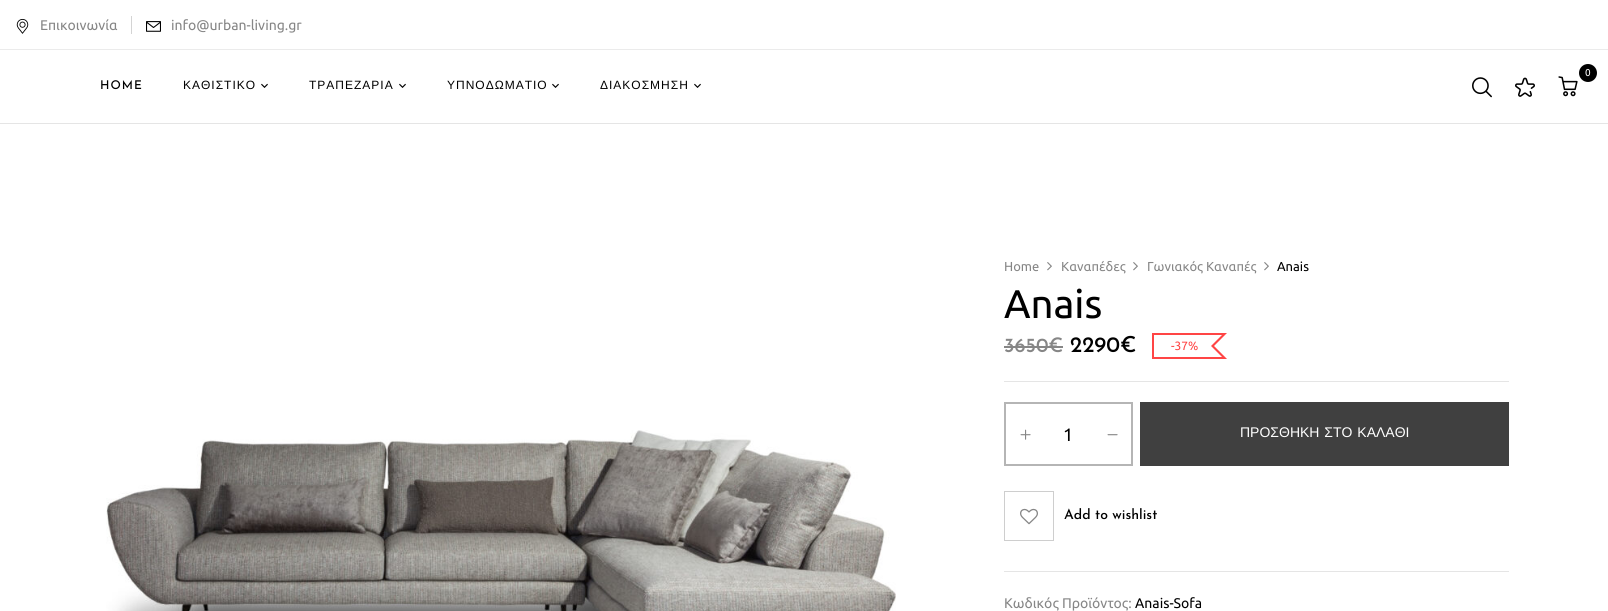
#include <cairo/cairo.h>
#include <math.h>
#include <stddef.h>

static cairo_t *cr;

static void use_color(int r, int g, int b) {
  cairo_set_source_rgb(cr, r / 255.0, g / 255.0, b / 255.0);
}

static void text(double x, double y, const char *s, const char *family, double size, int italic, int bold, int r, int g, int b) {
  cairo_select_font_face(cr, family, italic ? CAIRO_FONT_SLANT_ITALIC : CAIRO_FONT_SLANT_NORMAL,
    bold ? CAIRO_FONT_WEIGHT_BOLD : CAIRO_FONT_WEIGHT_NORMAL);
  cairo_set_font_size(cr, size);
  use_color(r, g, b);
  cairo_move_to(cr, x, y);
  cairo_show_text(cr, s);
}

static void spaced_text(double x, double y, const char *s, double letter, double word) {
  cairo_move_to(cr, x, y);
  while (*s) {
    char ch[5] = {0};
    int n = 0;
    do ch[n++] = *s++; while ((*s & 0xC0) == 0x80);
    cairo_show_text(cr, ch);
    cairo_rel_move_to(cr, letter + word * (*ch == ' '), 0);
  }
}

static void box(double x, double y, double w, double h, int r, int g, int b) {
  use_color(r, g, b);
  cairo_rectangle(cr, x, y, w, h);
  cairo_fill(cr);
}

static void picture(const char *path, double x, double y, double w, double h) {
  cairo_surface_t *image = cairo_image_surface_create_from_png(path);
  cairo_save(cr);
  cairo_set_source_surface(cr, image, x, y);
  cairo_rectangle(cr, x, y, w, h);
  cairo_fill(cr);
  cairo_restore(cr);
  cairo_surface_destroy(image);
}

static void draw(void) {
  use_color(255, 255, 255);
  cairo_paint(cr);
  box(0, 49, 1608, 1, 235, 235, 235);
  picture("img_01.png", 16, 18, 13, 16);
  box(131, 16, 1, 18, 212, 212, 212);
  picture("img_02.png", 146, 21, 15, 11);
  box(0, 123, 1608, 1, 229, 229, 229);
  use_color(0, 0, 0);
  cairo_arc(cr, 1588, 73, 9, 0, 2 * M_PI);
  cairo_fill(cr);
  picture("img_03.png", 1558, 76, 20, 21);
  picture("img_04.png", 1472, 77, 20, 21);
  picture("img_05.png", 1515, 77, 20, 20);
  picture("img_06.png", 261, 83, 7, 5);
  picture("img_06.png", 399, 83, 7, 5);
  picture("img_06.png", 552, 83, 7, 5);
  picture("img_06.png", 694, 83, 7, 5);
  picture("img_07.png", 106, 430, 790, 181);
  picture("img_08.png", 1047, 262, 5, 9);
  picture("img_08.png", 1133, 262, 5, 9);
  picture("img_08.png", 1264, 262, 5, 9);
  box(1004, 381, 505, 1, 229, 229, 229);
  box(1004, 346, 59, 2, 134, 134, 134);
  box(1152, 333, 55, 2, 255, 69, 69);
  box(1152, 357, 55, 2, 255, 69, 69);
  box(1152, 333, 2, 26, 255, 69, 69);
  cairo_new_path(cr);
  cairo_move_to(cr, 1201, 333);
  cairo_line_to(cr, 1227, 333);
  cairo_line_to(cr, 1214, 346);
  cairo_close_path(cr);
  cairo_move_to(cr, 1227, 359);
  cairo_line_to(cr, 1201, 359);
  cairo_line_to(cr, 1214, 346);
  cairo_close_path(cr);
  cairo_fill(cr);
  box(1201, 335, 13, 22, 255, 69, 69);
  use_color(255, 255, 255);
  cairo_new_path(cr);
  cairo_move_to(cr, 1200, 335);
  cairo_line_to(cr, 1222, 335);
  cairo_line_to(cr, 1211, 346);
  cairo_close_path(cr);
  cairo_move_to(cr, 1222, 357);
  cairo_line_to(cr, 1200, 357);
  cairo_line_to(cr, 1211, 346);
  cairo_close_path(cr);
  cairo_fill(cr);
  box(1201, 336, 10, 20, 255, 255, 255);
  cairo_rectangle(cr, 1005, 403, 127, 62);
  use_color(181, 181, 181);
  cairo_stroke(cr);
  picture("img_09.png", 1020, 429, 11, 11);
  picture("img_10.png", 1107, 434, 11, 2);
  box(1140, 402, 369, 64, 64, 64, 64);
  cairo_rectangle(cr, 1004.5, 491.5, 49, 49);
  use_color(206, 206, 206);
  cairo_set_line_width(cr, 1);
  cairo_stroke(cr);
  picture("img_11.png", 1020, 508, 18, 17);
  box(1004, 571, 505, 1, 229, 229, 229);
  text(40, 30, "Επικοινωνία", "Ubuntu", 14, 0, 0, 134, 134, 134);
  text(171, 30, "info@urban-living.gr", "Ubuntu", 14, 0, 0, 134, 134, 134);
  text(1585, 76, "0", "Ubuntu", 10, 0, 0, 255, 255, 255);
  cairo_select_font_face(cr, "Josefin Sans Medium", CAIRO_FONT_SLANT_NORMAL, CAIRO_FONT_WEIGHT_NORMAL);
  cairo_set_font_size(cr, 12);
  use_color(0, 0, 0);
  spaced_text(100, 89, "HOME", 1, 0);
  cairo_select_font_face(cr, "Liberation Sans", CAIRO_FONT_SLANT_NORMAL, CAIRO_FONT_WEIGHT_NORMAL);
  spaced_text(183, 89, "ΚΑΘΙΣΤΙΚΟ", 1, 0);
  spaced_text(309, 89, "ΤΡΑΠΕΖΑΡΙΑ", 1, 0);
  spaced_text(447, 89, "ΥΠΝΟΔΩΜΑΤΙΟ", 1, 0);
  spaced_text(600, 89, "ΔΙΑΚΟΣΜΗΣΗ", 1, 0);
  text(1004, 271, "Home", "Ubuntu", 13, 0, 0, 134, 134, 134);
  text(1061, 271, "Καναπέδες", "Ubuntu", 13, 0, 0, 134, 134, 134);
  text(1147, 271, "Γωνιακός Καναπές", "Ubuntu", 13, 0, 0, 134, 134, 134);
  text(1277, 271, "Anais", "Ubuntu", 13, 0, 0, 0, 0, 0);
  text(1004, 318, "Anais", "Ubuntu", 40, 0, 0, 0, 0, 0);
  text(1004, 352, "3650€", "Josefin Sans Medium", 20, 0, 0, 134, 134, 134);
  text(1070, 352, "2290€", "Josefin Sans Medium", 22, 0, 0, 0, 0, 0);
  text(1171, 350, "-37%", "Ubuntu", 12, 0, 0, 255, 69, 69);
  text(1063, 441, "1", "Ubuntu", 18, 0, 0, 0, 0, 0);
  cairo_select_font_face(cr, "Liberation Sans", CAIRO_FONT_SLANT_NORMAL, CAIRO_FONT_WEIGHT_NORMAL);
  cairo_set_font_size(cr, 14);
  use_color(255, 255, 255);
  spaced_text(1240, 437, "ΠΡΟΣΘΗΚΗ ΣΤΟ ΚΑΛΑΘΙ", 0, 1);
  text(1064, 519, "Add to wishlist", "Josefin Sans Medium", 14, 0, 0, 0, 0, 0);
  text(1004, 608, "Κωδικός Προϊόντος:", "Ubuntu", 14, 0, 0, 134, 134, 134);
  text(1135, 608, "Anais-Sofa", "Ubuntu", 14, 0, 0, 0, 0, 0);
}

int main(void) {
  cairo_surface_t *surface = cairo_image_surface_create(CAIRO_FORMAT_RGB24, 1608, 611);
  cr = cairo_create(surface);
  cairo_font_options_t *options = cairo_font_options_create();
  cairo_font_options_set_hint_metrics(options, CAIRO_HINT_METRICS_OFF);
  cairo_font_options_set_hint_style(options, CAIRO_HINT_STYLE_NONE);
  cairo_set_font_options(cr, options);
  cairo_set_miter_limit(cr, 4);
  draw();
  cairo_surface_write_to_png(surface, "out.png");
  cairo_font_options_destroy(options);
  cairo_destroy(cr);
  cairo_surface_destroy(surface);
  return 0;
}
